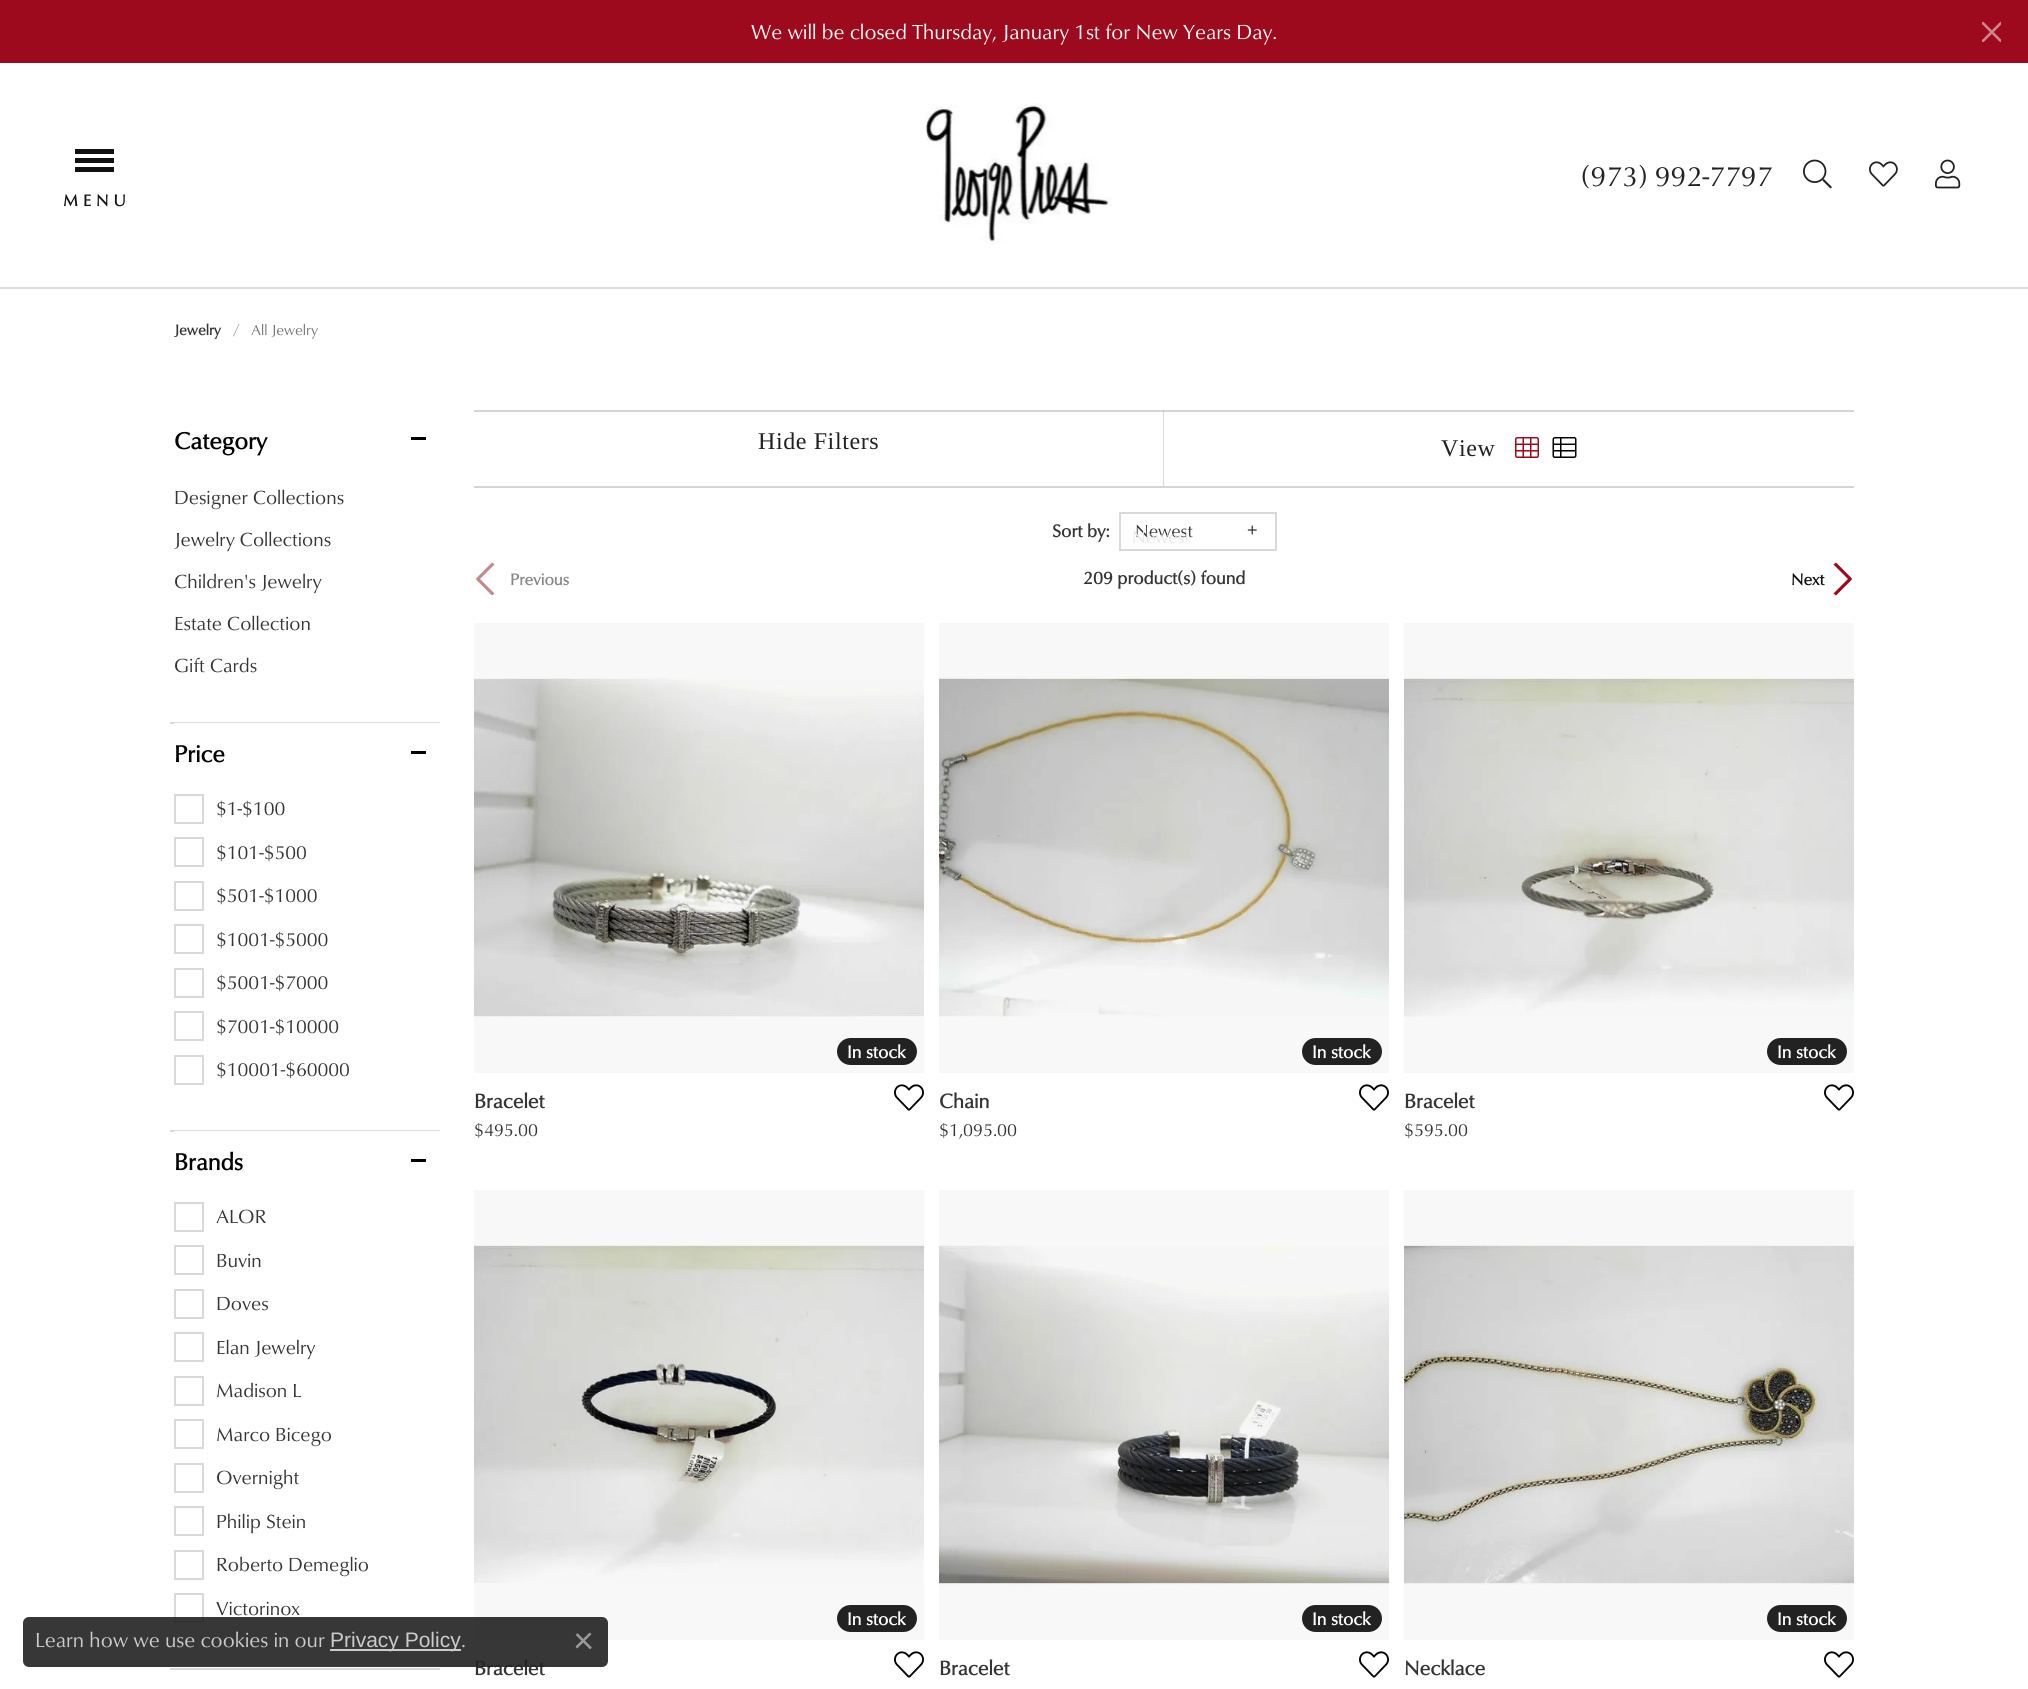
#include <cairo/cairo.h>
#include <math.h>
#include <stddef.h>

static cairo_t *cr;

static void use_color(int r, int g, int b) {
  cairo_set_source_rgb(cr, r / 255.0, g / 255.0, b / 255.0);
}

static void text(double x, double y, const char *s, const char *family, double size, int italic, int bold, int r, int g, int b) {
  cairo_select_font_face(cr, family, italic ? CAIRO_FONT_SLANT_ITALIC : CAIRO_FONT_SLANT_NORMAL,
    bold ? CAIRO_FONT_WEIGHT_BOLD : CAIRO_FONT_WEIGHT_NORMAL);
  cairo_set_font_size(cr, size);
  use_color(r, g, b);
  cairo_move_to(cr, x, y);
  cairo_show_text(cr, s);
}

static void spaced_text(double x, double y, const char *s, double letter, double word) {
  cairo_move_to(cr, x, y);
  while (*s) {
    char ch[5] = {0};
    int n = 0;
    do ch[n++] = *s++; while ((*s & 0xC0) == 0x80);
    cairo_show_text(cr, ch);
    cairo_rel_move_to(cr, letter + word * (*ch == ' '), 0);
  }
}

static void box(double x, double y, double w, double h, int r, int g, int b) {
  use_color(r, g, b);
  cairo_rectangle(cr, x, y, w, h);
  cairo_fill(cr);
}

static void round_rect(double x, double y, double w, double h, double r) {
  cairo_new_sub_path(cr);
  cairo_arc(cr, x + w - r, y + h - r, r, 0, M_PI / 2);
  cairo_arc(cr, x + r, y + h - r, r, M_PI / 2, M_PI);
  cairo_arc(cr, x + r, y + r, r, M_PI, 1.5 * M_PI);
  cairo_arc(cr, x + w - r, y + r, r, 1.5 * M_PI, 2 * M_PI);
  cairo_close_path(cr);
}

static void picture(const char *path, double x, double y, double w, double h) {
  cairo_surface_t *image = cairo_image_surface_create_from_png(path);
  cairo_save(cr);
  cairo_set_source_surface(cr, image, x, y);
  cairo_rectangle(cr, x, y, w, h);
  cairo_fill(cr);
  cairo_restore(cr);
  cairo_surface_destroy(image);
}

static void draw(void) {
  use_color(157, 10, 30);
  cairo_paint(cr);
  picture("img_01.png", 1982, 21, 19, 21);
  box(0, 63, 2028, 224, 255, 255, 255);
  box(0, 287, 2028, 2, 221, 221, 221);
  picture("img_02.png", 926, 103, 186, 141);
  picture("img_03.png", 1803, 159, 29, 30);
  picture("img_04.png", 1869, 161, 29, 26);
  picture("img_05.png", 1935, 159, 26, 30);
  box(75, 149, 39, 5, 17, 17, 17);
  box(75, 158, 39, 5, 17, 17, 17);
  box(75, 167, 39, 5, 17, 17, 17);
  box(0, 289, 2028, 1400, 255, 255, 255);
  box(1404, 1190, 450, 450, 248, 248, 248);
  box(939, 1190, 450, 450, 248, 248, 248);
  box(474, 1190, 450, 450, 248, 248, 248);
  box(1404, 623, 450, 450, 248, 248, 248);
  box(939, 623, 450, 450, 248, 248, 248);
  box(474, 623, 450, 450, 248, 248, 248);
  box(474, 410, 1380, 2, 213, 213, 213);
  box(170, 722, 270, 2, 217, 217, 217);
  box(411, 437, 15, 3, 0, 0, 0);
  box(170, 1130, 270, 2, 217, 217, 217);
  box(174, 723, 266, 1, 255, 255, 255);
  box(411, 751, 15, 3, 0, 0, 0);
  cairo_rectangle(cr, 175, 795, 28, 28);
  use_color(217, 217, 217);
  cairo_stroke(cr);
  cairo_rectangle(cr, 175, 838, 28, 28);
  cairo_stroke(cr);
  cairo_rectangle(cr, 175, 882, 28, 28);
  cairo_stroke(cr);
  cairo_rectangle(cr, 175, 925, 28, 28);
  cairo_stroke(cr);
  cairo_rectangle(cr, 175, 969, 28, 28);
  cairo_stroke(cr);
  cairo_rectangle(cr, 175, 1012, 28, 28);
  cairo_stroke(cr);
  cairo_rectangle(cr, 175, 1056, 28, 28);
  cairo_stroke(cr);
  box(170, 1668, 270, 2, 217, 217, 217);
  box(174, 1131, 266, 1, 255, 255, 255);
  box(411, 1159, 15, 3, 0, 0, 0);
  cairo_rectangle(cr, 175, 1203, 28, 28);
  use_color(217, 217, 217);
  cairo_stroke(cr);
  cairo_rectangle(cr, 175, 1246, 28, 28);
  cairo_stroke(cr);
  cairo_rectangle(cr, 175, 1290, 28, 28);
  cairo_stroke(cr);
  cairo_rectangle(cr, 175, 1333, 28, 28);
  cairo_stroke(cr);
  cairo_rectangle(cr, 175, 1377, 28, 28);
  cairo_stroke(cr);
  cairo_rectangle(cr, 175, 1420, 28, 28);
  cairo_stroke(cr);
  cairo_rectangle(cr, 175, 1464, 28, 28);
  cairo_stroke(cr);
  cairo_rectangle(cr, 175, 1507, 28, 28);
  cairo_stroke(cr);
  cairo_rectangle(cr, 175, 1551, 28, 28);
  cairo_stroke(cr);
  cairo_rectangle(cr, 175, 1594, 28, 28);
  cairo_stroke(cr);
  box(1163, 411, 1, 75, 217, 217, 217);
  box(1163, 411, 2, 1, 185, 185, 185);
  box(1164, 411, 1, 1, 213, 213, 213);
  picture("img_06.png", 1515, 437, 24, 21);
  picture("img_07.png", 1552, 437, 25, 21);
  box(474, 486, 1380, 2, 213, 213, 213);
  cairo_rectangle(cr, 1120, 513, 156, 37);
  use_color(217, 217, 217);
  cairo_stroke(cr);
  use_color(198, 135, 143);
  cairo_new_path(cr);
  cairo_move_to(cr, 476, 578.5);
  cairo_line_to(cr, 492, 562.5);
  cairo_line_to(cr, 494.5, 564.5);
  cairo_line_to(cr, 478.5, 580.5);
  cairo_close_path(cr);
  cairo_fill(cr);
  cairo_new_path(cr);
  cairo_move_to(cr, 478.5, 577.5);
  cairo_line_to(cr, 494.5, 593.5);
  cairo_line_to(cr, 492, 595.5);
  cairo_line_to(cr, 476, 579.5);
  cairo_close_path(cr);
  cairo_fill(cr);
  use_color(157, 10, 30);
  cairo_new_path(cr);
  cairo_move_to(cr, 1836, 562.5);
  cairo_line_to(cr, 1852, 578.5);
  cairo_line_to(cr, 1849.5, 580.5);
  cairo_line_to(cr, 1833.5, 564.5);
  cairo_close_path(cr);
  cairo_fill(cr);
  cairo_new_path(cr);
  cairo_move_to(cr, 1833.5, 593.5);
  cairo_line_to(cr, 1849.5, 577.5);
  cairo_line_to(cr, 1852, 579.5);
  cairo_line_to(cr, 1836, 595.5);
  cairo_close_path(cr);
  cairo_fill(cr);
  picture("img_08.png", 474, 678, 450, 339);
  use_color(34, 34, 34);
  round_rect(837, 1038, 80, 27, 13.5);
  cairo_fill(cr);
  picture("img_09.png", 894, 1084, 30, 27);
  picture("img_10.png", 939, 676, 450, 341);
  round_rect(1302, 1038, 80, 27, 13.5);
  cairo_fill(cr);
  picture("img_09.png", 1359, 1084, 30, 27);
  picture("img_11.png", 1404, 677, 450, 340);
  round_rect(1767, 1038, 80, 27, 13.5);
  cairo_fill(cr);
  picture("img_09.png", 1824, 1084, 30, 27);
  picture("img_12.png", 474, 1244, 450, 339);
  round_rect(837, 1605, 80, 27, 13.5);
  cairo_fill(cr);
  picture("img_09.png", 894, 1651, 30, 27);
  picture("img_13.png", 939, 1245, 450, 341);
  round_rect(1302, 1605, 80, 27, 13.5);
  cairo_fill(cr);
  picture("img_09.png", 1359, 1651, 30, 27);
  picture("img_14.png", 1404, 1244, 450, 341);
  round_rect(1767, 1605, 80, 27, 13.5);
  cairo_fill(cr);
  picture("img_09.png", 1824, 1651, 30, 27);
  text(751, 39, "We will be closed Thursday, January 1st for New Years Day.", "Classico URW", 21, 0, 0, 255, 255, 255);
  text(1581, 186, "(973) 992-7797", "Classico URW", 28.75, 0, 0, 34, 34, 34);
  cairo_select_font_face(cr, "Classico URW", CAIRO_FONT_SLANT_NORMAL, CAIRO_FONT_WEIGHT_BOLD);
  cairo_set_font_size(cr, 16.5);
  use_color(17, 17, 17);
  spaced_text(63, 206, "MENU", 5, 0);
  text(174, 335, "Jewelry", "Classico URW", 15, 0, 1, 53, 53, 53);
  text(233, 335, "/", "Classico URW", 15, 0, 0, 125, 125, 125);
  text(251, 335, "All Jewelry", "Classico URW", 15, 0, 0, 117, 117, 117);
  text(174, 449, "Category", "Classico URW", 24, 0, 1, 0, 0, 0);
  text(174, 504, "Designer Collections", "Classico URW", 19.5, 0, 0, 53, 53, 53);
  text(174, 546, "Jewelry Collections", "Classico URW", 19.5, 0, 0, 53, 53, 53);
  text(174, 588, "Children's Jewelry", "Classico URW", 19.5, 0, 0, 53, 53, 53);
  text(174, 630, "Estate Collection", "Classico URW", 19.5, 0, 0, 53, 53, 53);
  text(174, 672, "Gift Cards", "Classico URW", 19.5, 0, 0, 53, 53, 53);
  text(174, 762, "Price", "Classico URW", 24, 0, 1, 0, 0, 0);
  text(216, 815, "$1-$100", "Classico URW", 19.5, 0, 0, 53, 53, 53);
  text(216, 859, "$101-$500", "Classico URW", 19.5, 0, 0, 53, 53, 53);
  text(216, 902, "$501-$1000", "Classico URW", 19.5, 0, 0, 53, 53, 53);
  text(216, 946, "$1001-$5000", "Classico URW", 19.5, 0, 0, 53, 53, 53);
  text(216, 989, "$5001-$7000", "Classico URW", 19.5, 0, 0, 53, 53, 53);
  text(216, 1033, "$7001-$10000", "Classico URW", 19.5, 0, 0, 53, 53, 53);
  text(216, 1076, "$10001-$60000", "Classico URW", 19.5, 0, 0, 53, 53, 53);
  text(174, 1170, "Brands", "Classico URW", 24, 0, 1, 0, 0, 0);
  text(216, 1223, "ALOR", "Classico URW", 19.5, 0, 0, 53, 53, 53);
  text(216, 1267, "Buvin", "Classico URW", 19.5, 0, 0, 53, 53, 53);
  text(216, 1310, "Doves", "Classico URW", 19.5, 0, 0, 53, 53, 53);
  text(216, 1354, "Elan Jewelry", "Classico URW", 19.5, 0, 0, 53, 53, 53);
  text(216, 1397, "Madison L", "Classico URW", 19.5, 0, 0, 53, 53, 53);
  text(216, 1441, "Marco Bicego", "Classico URW", 19.5, 0, 0, 53, 53, 53);
  text(216, 1484, "Overnight", "Classico URW", 19.5, 0, 0, 53, 53, 53);
  text(216, 1528, "Philip Stein", "Classico URW", 19.5, 0, 0, 53, 53, 53);
  text(216, 1571, "Roberto Demeglio", "Classico URW", 19.5, 0, 0, 53, 53, 53);
  text(216, 1615, "Victorinox", "Classico URW", 19.5, 0, 0, 53, 53, 53);
  cairo_select_font_face(cr, "Liberation Serif", CAIRO_FONT_SLANT_NORMAL, CAIRO_FONT_WEIGHT_NORMAL);
  cairo_set_font_size(cr, 24);
  use_color(34, 34, 34);
  spaced_text(758, 449, "Hide Filters", 0.6, 0);
  spaced_text(1441, 456, "View", 0.6, 0);
  text(1052, 537, "Sort by:", "Classico URW", 18, 0, 1, 53, 53, 53);
  text(1135, 537, "Newest", "Classico URW", 18, 0, 0, 53, 53, 53);
  text(1247, 536, "+", "Liberation Sans", 18, 0, 0, 53, 53, 53);
  text(1132, 543, "Newest", "Classico URW", 18, 0, 0, 231, 231, 231);
  text(1083, 584, "209 product(s) found", "Classico URW", 18, 0, 1, 53, 53, 53);
  text(510, 585, "Previous", "Classico URW", 16.5, 0, 1, 136, 136, 136);
  text(1791, 585, "Next", "Classico URW", 16.5, 0, 1, 17, 17, 17);
  text(847, 1058, "In stock", "Classico URW", 18, 0, 1, 255, 255, 255);
  text(474, 1108, "Bracelet", "Classico URW", 20.5, 0, 1, 53, 53, 53);
  text(474, 1136, "$495.00", "Classico URW", 18, 0, 0, 53, 53, 53);
  text(1312, 1058, "In stock", "Classico URW", 18, 0, 1, 255, 255, 255);
  text(939, 1108, "Chain", "Classico URW", 20.5, 0, 1, 53, 53, 53);
  text(939, 1136, "$1,095.00", "Classico URW", 18, 0, 0, 53, 53, 53);
  text(1777, 1058, "In stock", "Classico URW", 18, 0, 1, 255, 255, 255);
  text(1404, 1108, "Bracelet", "Classico URW", 20.5, 0, 1, 53, 53, 53);
  text(1404, 1136, "$595.00", "Classico URW", 18, 0, 0, 53, 53, 53);
  text(847, 1625, "In stock", "Classico URW", 18, 0, 1, 255, 255, 255);
  text(474, 1675, "Bracelet", "Classico URW", 20.5, 0, 1, 53, 53, 53);
  text(1312, 1625, "In stock", "Classico URW", 18, 0, 1, 255, 255, 255);
  text(939, 1675, "Bracelet", "Classico URW", 20.5, 0, 1, 53, 53, 53);
  text(1777, 1625, "In stock", "Classico URW", 18, 0, 1, 255, 255, 255);
  text(1404, 1675, "Necklace", "Classico URW", 20.5, 0, 1, 53, 53, 53);
  cairo_set_source_rgba(cr, 0.133, 0.133, 0.133, 0.9);
  round_rect(23, 1617, 585, 50, 6);
  cairo_fill(cr);
  text(35, 1647, "Learn how we use cookies in our", "Classico URW", 21, 0, 0, 204, 204, 204);
  box(330, 1649, 131, 2, 204, 204, 204);
  text(330, 1647, "Privacy Policy", "Liberation Sans", 21, 0, 0, 204, 204, 204);
  text(461, 1647, ".", "Classico URW", 21, 0, 0, 204, 204, 204);
  picture("img_15.png", 575, 1632, 17, 17);
}

int main(void) {
  cairo_surface_t *surface = cairo_image_surface_create(CAIRO_FORMAT_RGB24, 2028, 1689);
  cr = cairo_create(surface);
  cairo_font_options_t *options = cairo_font_options_create();
  cairo_font_options_set_hint_metrics(options, CAIRO_HINT_METRICS_OFF);
  cairo_font_options_set_hint_style(options, CAIRO_HINT_STYLE_NONE);
  cairo_set_font_options(cr, options);
  cairo_set_miter_limit(cr, 4);
  draw();
  cairo_surface_write_to_png(surface, "out.png");
  cairo_font_options_destroy(options);
  cairo_destroy(cr);
  cairo_surface_destroy(surface);
  return 0;
}
